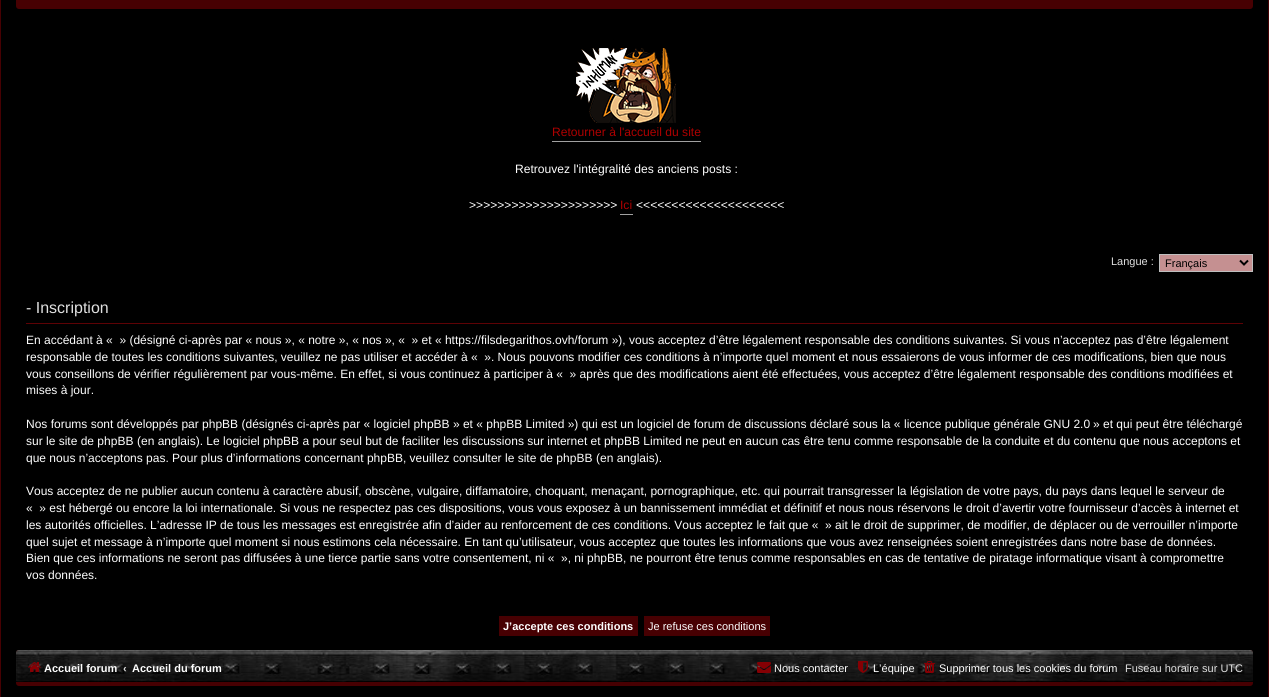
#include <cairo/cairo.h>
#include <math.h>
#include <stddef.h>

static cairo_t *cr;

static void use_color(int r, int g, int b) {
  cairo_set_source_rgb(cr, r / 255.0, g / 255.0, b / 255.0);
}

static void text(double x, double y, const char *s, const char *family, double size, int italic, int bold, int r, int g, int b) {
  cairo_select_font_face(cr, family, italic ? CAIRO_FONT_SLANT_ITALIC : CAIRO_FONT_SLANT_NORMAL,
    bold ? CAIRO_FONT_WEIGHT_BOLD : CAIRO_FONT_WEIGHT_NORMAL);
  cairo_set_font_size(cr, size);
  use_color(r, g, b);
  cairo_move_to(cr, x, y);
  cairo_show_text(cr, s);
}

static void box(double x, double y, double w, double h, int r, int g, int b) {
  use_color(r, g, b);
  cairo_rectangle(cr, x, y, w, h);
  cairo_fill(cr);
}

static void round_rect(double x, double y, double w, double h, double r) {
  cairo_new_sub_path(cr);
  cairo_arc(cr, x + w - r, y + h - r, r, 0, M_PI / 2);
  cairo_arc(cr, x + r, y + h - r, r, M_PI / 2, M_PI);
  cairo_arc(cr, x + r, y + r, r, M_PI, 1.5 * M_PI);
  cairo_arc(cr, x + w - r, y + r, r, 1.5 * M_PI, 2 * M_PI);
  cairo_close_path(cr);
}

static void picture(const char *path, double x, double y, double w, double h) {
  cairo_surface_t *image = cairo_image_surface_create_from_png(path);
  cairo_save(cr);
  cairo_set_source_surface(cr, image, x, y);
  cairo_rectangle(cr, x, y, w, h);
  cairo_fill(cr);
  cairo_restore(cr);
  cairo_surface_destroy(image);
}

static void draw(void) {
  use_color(0, 0, 0);
  cairo_paint(cr);
  cairo_rectangle(cr, 0.5, -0.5, 1268, 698);
  use_color(71, 0, 2);
  cairo_set_line_width(cr, 1);
  cairo_stroke(cr);
  round_rect(16, -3, 1237, 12, 3);
  cairo_fill(cr);
  box(552, 141, 149, 1, 160, 160, 160);
  picture("img_01.png", 576, 48, 100, 75);
  box(620, 214, 13, 1, 160, 160, 160);
  use_color(197, 144, 145);
  cairo_rectangle(cr, 1159.5, 254.5, 93, 17);
  cairo_fill_preserve(cr);
  use_color(191, 191, 191);
  cairo_stroke(cr);
  cairo_new_path(cr);
  cairo_move_to(cr, 1240, 260.5);
  cairo_line_to(cr, 1244, 264.5);
  cairo_line_to(cr, 1248, 260.5);
  use_color(0, 0, 0);
  cairo_set_line_width(cr, 2);
  cairo_stroke(cr);
  box(26, 323, 1217, 1, 93, 2, 5);
  box(499, 616, 139, 20, 71, 0, 2);
  box(644, 616, 126, 20, 71, 0, 2);
  round_rect(16, 650, 1237, 36, 3);
  cairo_fill(cr);
  picture("img_02.png", 16, 650, 1237, 32);
  picture("img_03.png", 28, 662, 13, 10);
  picture("img_04.png", 757, 662, 14, 11);
  picture("img_05.png", 858, 661, 10, 12);
  picture("img_06.png", 924, 661, 11, 12);
  text(552, 136, "Retourner à l'accueil du site", "Liberation Sans", 12.1, 0, 0, 174, 0, 0);
  text(515, 173, "Retrouvez l'intégralité des anciens posts :", "Liberation Sans", 12.1, 0, 0, 254, 254, 254);
  text(469, 209, ">>>>>>>>>>>>>>>>>>>>>", "Liberation Sans", 12.1, 0, 0, 254, 254, 254);
  text(620, 209, "Ici", "Liberation Sans", 12.1, 0, 0, 174, 0, 0);
  text(636, 209, "<<<<<<<<<<<<<<<<<<<<<", "Liberation Sans", 12.1, 0, 0, 254, 254, 254);
  text(1111, 265, "Langue :", "Liberation Sans", 11, 0, 0, 224, 224, 224);
  text(1165, 267, "Français", "Liberation Sans", 11, 0, 0, 0, 0, 0);
  text(26, 313, "- Inscription", "Liberation Sans", 16, 0, 0, 224, 224, 224);
  text(26, 344, "En accédant à «  » (désigné ci-après par « nous », « notre », « nos », «  » et « https://filsdegarithos.ovh/forum »), vous acceptez d’être légalement responsable des conditions suivantes. Si vous n’acceptez pas d’être légalement", "Liberation Sans", 12, 0, 0, 254, 254, 254);
  text(26, 361, "responsable de toutes les conditions suivantes, veuillez ne pas utiliser et accéder à «  ». Nous pouvons modifier ces conditions à n’importe quel moment et nous essaierons de vous informer de ces modifications, bien que nous", "Liberation Sans", 12, 0, 0, 254, 254, 254);
  text(26, 378, "vous conseillons de vérifier régulièrement par vous-même. En effet, si vous continuez à participer à «  » après que des modifications aient été effectuées, vous acceptez d’être légalement responsable des conditions modifiées et", "Liberation Sans", 12, 0, 0, 254, 254, 254);
  text(26, 394, "mises à jour.", "Liberation Sans", 12, 0, 0, 254, 254, 254);
  text(26, 428, "Nos forums sont développés par phpBB (désignés ci-après par « logiciel phpBB » et « phpBB Limited ») qui est un logiciel de forum de discussions déclaré sous la «", "Liberation Sans", 12, 0, 0, 254, 254, 254);
  text(904, 428, "licence publique générale GNU 2.0", "Liberation Sans", 12, 0, 0, 254, 254, 254);
  text(1093, 428, "» et qui peut être téléchargé", "Liberation Sans", 12, 0, 0, 254, 254, 254);
  text(26, 445, "sur", "Liberation Sans", 12, 0, 0, 254, 254, 254);
  text(46, 445, "le site de phpBB", "Liberation Sans", 12, 0, 0, 254, 254, 254);
  text(137, 445, "(en anglais). Le logiciel phpBB a pour seul but de faciliter les discussions sur internet et phpBB Limited ne peut en aucun cas être tenu comme responsable de la conduite et du contenu que nous acceptons et", "Liberation Sans", 12, 0, 0, 254, 254, 254);
  text(26, 462, "que nous n’acceptons pas. Pour plus d’informations concernant phpBB, veuillez consulter", "Liberation Sans", 12, 0, 0, 254, 254, 254);
  text(505, 462, "le site de phpBB", "Liberation Sans", 12, 0, 0, 254, 254, 254);
  text(596, 462, "(en anglais).", "Liberation Sans", 12, 0, 0, 254, 254, 254);
  text(26, 495, "Vous acceptez de ne publier aucun contenu à caractère abusif, obscène, vulgaire, diffamatoire, choquant, menaçant, pornographique, etc. qui pourrait transgresser la législation de votre pays, du pays dans lequel le serveur de", "Liberation Sans", 12, 0, 0, 254, 254, 254);
  text(26, 512, "«  » est hébergé ou encore la loi internationale. Si vous ne respectez pas ces dispositions, vous vous exposez à un bannissement immédiat et définitif et nous nous réservons le droit d’avertir votre fournisseur d’accès à internet et", "Liberation Sans", 12, 0, 0, 254, 254, 254);
  text(26, 529, "les autorités officielles. L’adresse IP de tous les messages est enregistrée afin d’aider au renforcement de ces conditions. Vous acceptez le fait que «  » ait le droit de supprimer, de modifier, de déplacer ou de verrouiller n’importe", "Liberation Sans", 12, 0, 0, 254, 254, 254);
  text(26, 546, "quel sujet et message à n’importe quel moment si nous estimons cela nécessaire. En tant qu’utilisateur, vous acceptez que toutes les informations que vous avez renseignées soient enregistrées dans notre base de données.", "Liberation Sans", 12, 0, 0, 254, 254, 254);
  text(26, 562, "Bien que ces informations ne seront pas diffusées à une tierce partie sans votre consentement, ni «  », ni phpBB, ne pourront être tenus comme responsables en cas de tentative de piratage informatique visant à compromettre", "Liberation Sans", 12, 0, 0, 254, 254, 254);
  text(26, 579, "vos données.", "Liberation Sans", 12, 0, 0, 254, 254, 254);
  text(503, 630, "J’accepte ces conditions", "Liberation Sans", 11, 0, 1, 254, 254, 254);
  text(648, 630, "Je refuse ces conditions", "Liberation Sans", 11, 0, 0, 254, 254, 254);
  text(44, 672, "Accueil forum", "Liberation Sans", 11, 0, 1, 254, 254, 254);
  text(123, 672, "‹", "Liberation Sans", 11, 0, 1, 224, 224, 224);
  text(132, 672, "Accueil du forum", "Liberation Sans", 11, 0, 1, 254, 254, 254);
  text(774, 672, "Nous contacter", "Liberation Sans", 11, 0, 0, 254, 254, 254);
  text(873, 672, "L’équipe", "Liberation Sans", 11, 0, 0, 254, 254, 254);
  text(939, 672, "Supprimer tous les cookies du forum", "Liberation Sans", 11, 0, 0, 254, 254, 254);
  text(1125, 672, "Fuseau horaire sur UTC", "Liberation Sans", 11, 0, 0, 224, 224, 224);
}

int main(void) {
  cairo_surface_t *surface = cairo_image_surface_create(CAIRO_FORMAT_RGB24, 1269, 697);
  cr = cairo_create(surface);
  cairo_font_options_t *options = cairo_font_options_create();
  cairo_font_options_set_hint_metrics(options, CAIRO_HINT_METRICS_OFF);
  cairo_font_options_set_hint_style(options, CAIRO_HINT_STYLE_NONE);
  cairo_set_font_options(cr, options);
  cairo_set_miter_limit(cr, 4);
  draw();
  cairo_surface_write_to_png(surface, "out.png");
  cairo_font_options_destroy(options);
  cairo_destroy(cr);
  cairo_surface_destroy(surface);
  return 0;
}
